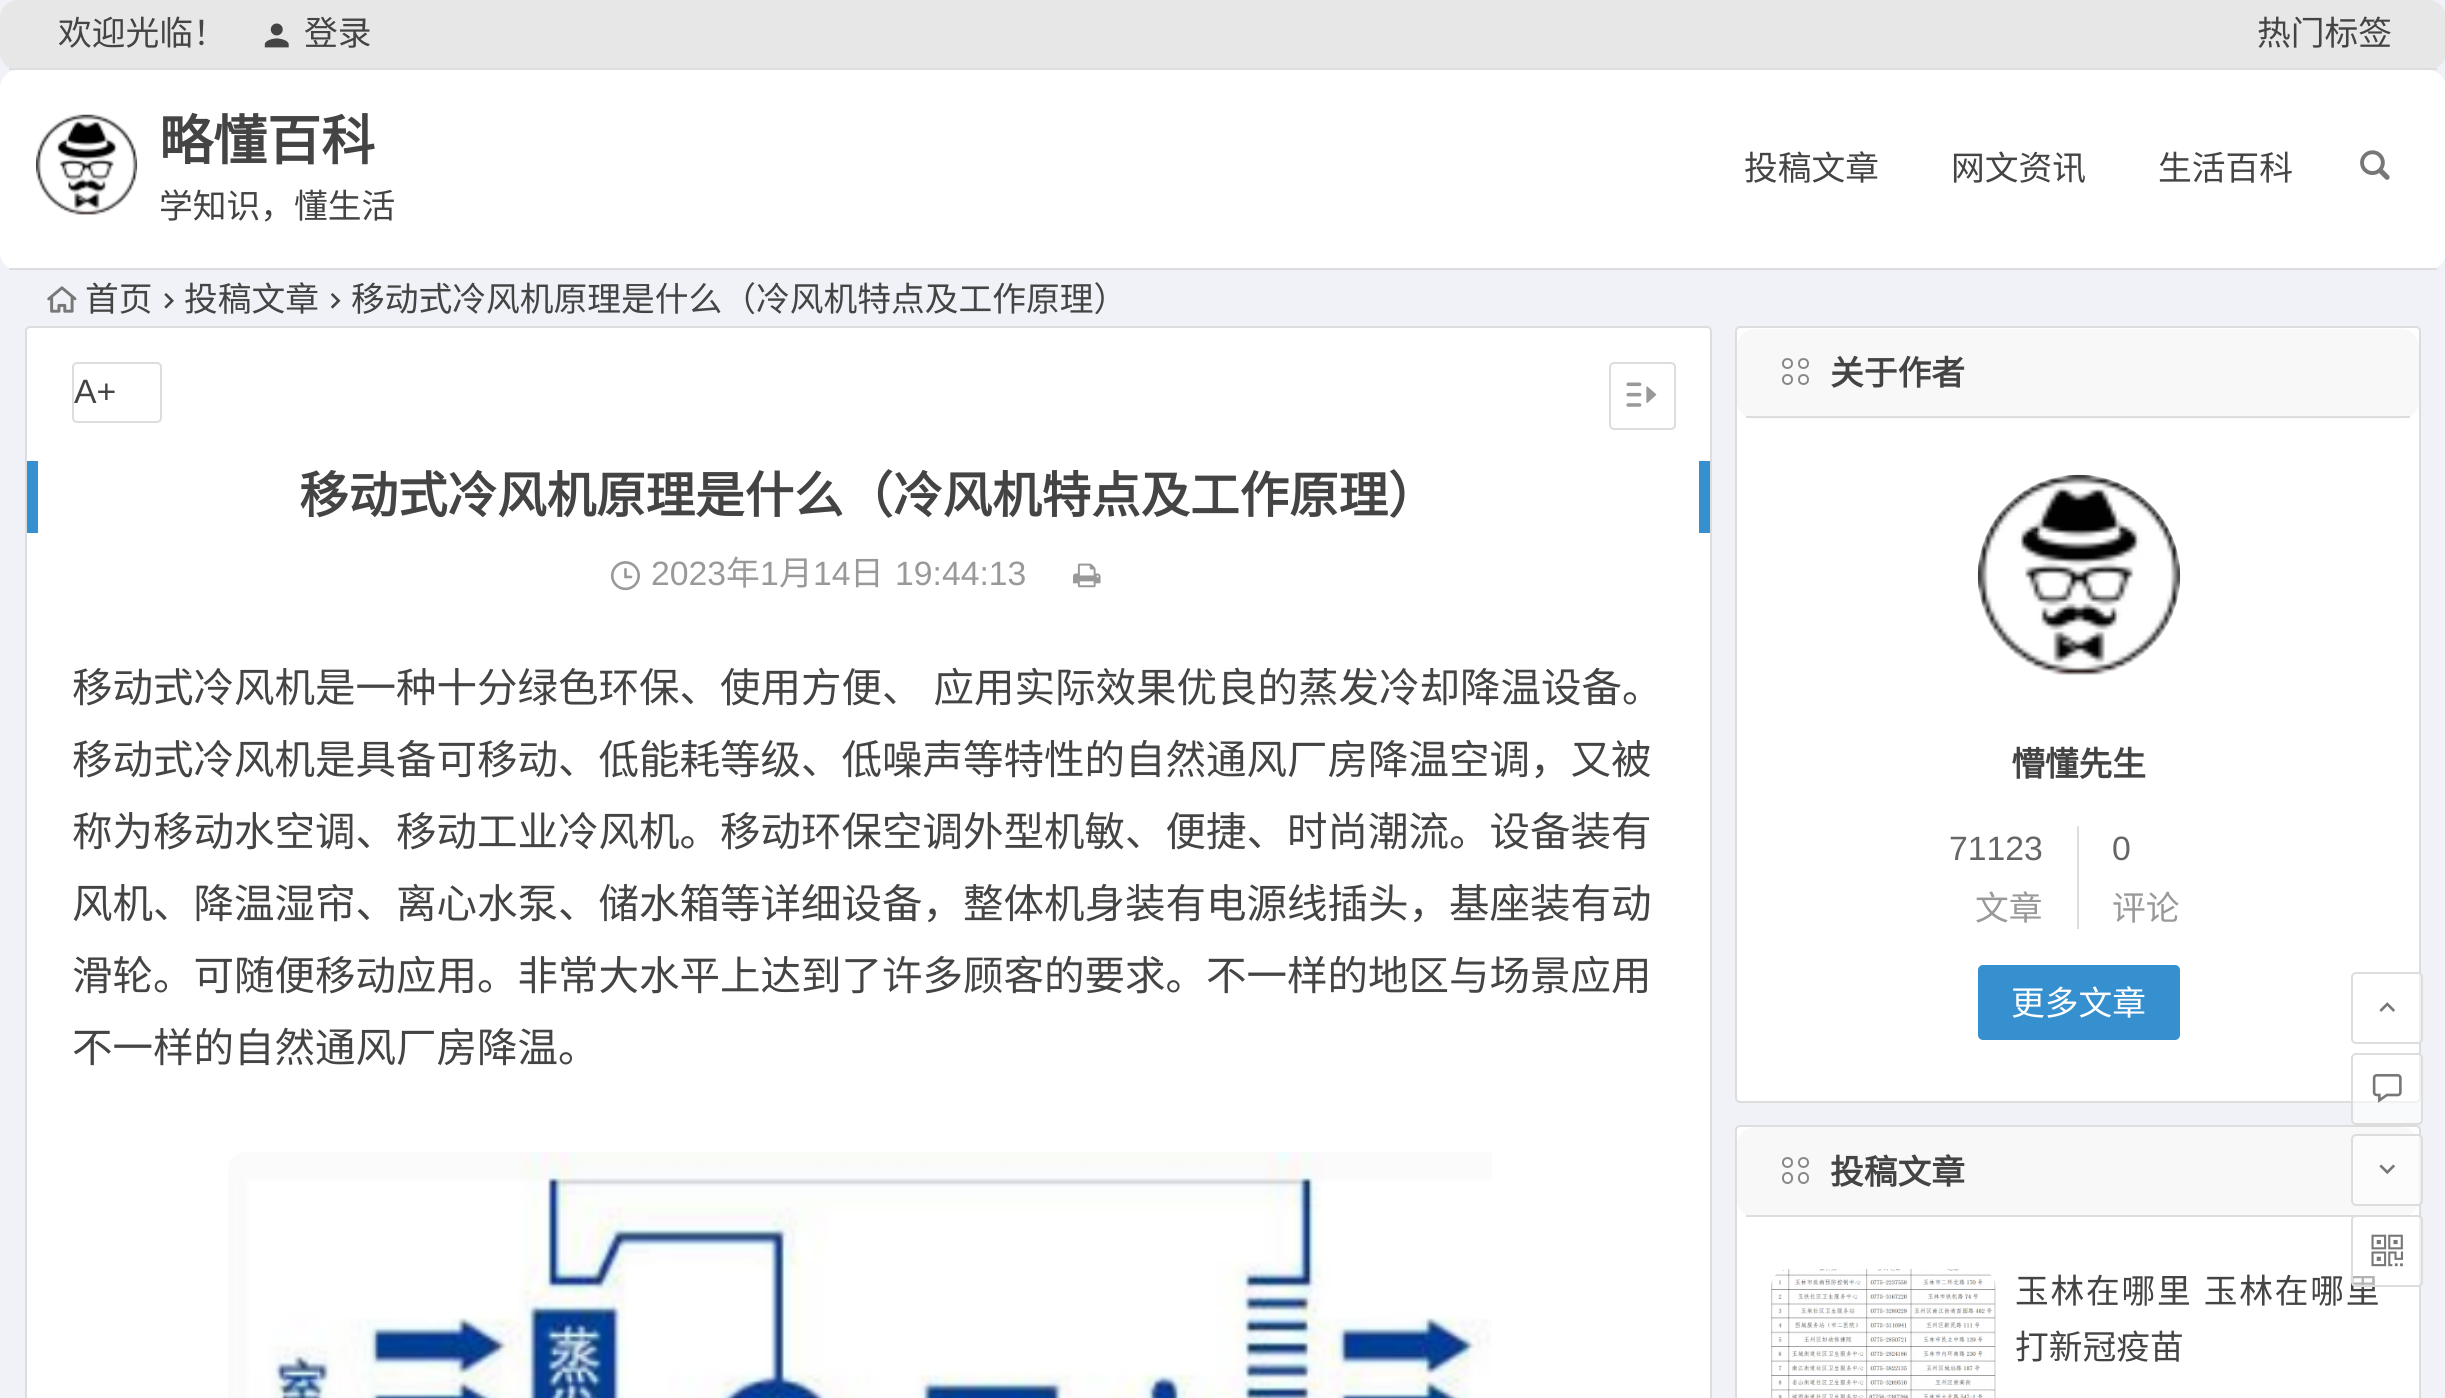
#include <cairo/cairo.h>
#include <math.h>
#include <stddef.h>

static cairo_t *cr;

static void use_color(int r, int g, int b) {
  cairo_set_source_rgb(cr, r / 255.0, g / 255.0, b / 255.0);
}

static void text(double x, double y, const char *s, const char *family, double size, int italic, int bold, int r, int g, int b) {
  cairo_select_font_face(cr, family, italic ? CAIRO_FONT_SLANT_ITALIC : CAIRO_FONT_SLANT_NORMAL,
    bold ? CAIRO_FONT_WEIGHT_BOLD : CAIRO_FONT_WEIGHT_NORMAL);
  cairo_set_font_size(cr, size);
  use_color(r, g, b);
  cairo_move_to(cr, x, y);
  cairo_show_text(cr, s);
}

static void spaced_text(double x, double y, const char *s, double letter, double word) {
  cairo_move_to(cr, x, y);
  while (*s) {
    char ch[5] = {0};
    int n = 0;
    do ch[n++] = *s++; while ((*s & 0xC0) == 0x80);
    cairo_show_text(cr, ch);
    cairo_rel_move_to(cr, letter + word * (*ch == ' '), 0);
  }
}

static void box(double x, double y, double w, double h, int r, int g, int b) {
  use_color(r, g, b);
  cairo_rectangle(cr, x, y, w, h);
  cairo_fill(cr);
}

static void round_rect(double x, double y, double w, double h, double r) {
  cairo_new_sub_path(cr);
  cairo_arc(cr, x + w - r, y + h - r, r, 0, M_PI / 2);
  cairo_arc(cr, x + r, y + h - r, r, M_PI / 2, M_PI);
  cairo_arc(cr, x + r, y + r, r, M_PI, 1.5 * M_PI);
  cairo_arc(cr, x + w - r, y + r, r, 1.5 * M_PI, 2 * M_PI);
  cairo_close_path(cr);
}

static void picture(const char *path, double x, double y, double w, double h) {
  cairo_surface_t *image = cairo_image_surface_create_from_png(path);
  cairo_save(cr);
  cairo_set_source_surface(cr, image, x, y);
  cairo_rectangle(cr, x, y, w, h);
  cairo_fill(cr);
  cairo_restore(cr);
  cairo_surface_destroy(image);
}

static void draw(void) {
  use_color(240, 242, 247);
  cairo_paint(cr);
  use_color(231, 231, 231);
  round_rect(0, 0, 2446, 70, 18);
  cairo_fill(cr);
  box(9, 68, 2428, 2, 222, 222, 222);
  picture("img_01.png", 264, 23, 25, 25);
  use_color(255, 255, 255);
  round_rect(0, 70, 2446, 200, 18);
  cairo_fill(cr);
  box(9, 268, 2428, 2, 221, 221, 221);
  picture("img_02.png", 36, 114, 102, 101);
  picture("img_03.png", 2360, 150, 30, 30);
  picture("img_04.png", 47, 286, 30, 27);
  picture("img_05.png", 164, 293, 10, 16);
  picture("img_06.png", 330, 293, 11, 16);
  use_color(255, 255, 255);
  round_rect(26, 327, 1685, 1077, 4);
  cairo_fill_preserve(cr);
  use_color(221, 221, 221);
  cairo_stroke(cr);
  round_rect(73, 363, 88, 59, 4);
  cairo_stroke(cr);
  round_rect(1610, 363, 65, 66, 4);
  cairo_stroke(cr);
  picture("img_07.png", 1626, 382, 31, 25);
  picture("img_08.png", 610, 561, 30, 30);
  picture("img_09.png", 1073, 563, 28, 25);
  picture("img_10.png", 228, 1152, 1264, 246);
  box(1699, 461, 11, 72, 54, 144, 207);
  box(27, 461, 11, 72, 54, 144, 207);
  use_color(255, 255, 255);
  round_rect(1736, 327, 684, 775, 4);
  cairo_fill_preserve(cr);
  use_color(221, 221, 221);
  cairo_stroke(cr);
  use_color(248, 248, 248);
  round_rect(1737, 329, 682, 90, 18);
  cairo_fill(cr);
  box(1746, 416, 664, 2, 221, 221, 221);
  use_color(255, 255, 255);
  cairo_arc(cr, 1787.5, 363.5, 4.5, 0, 2 * M_PI);
  cairo_fill_preserve(cr);
  use_color(136, 136, 136);
  cairo_stroke(cr);
  use_color(255, 255, 255);
  cairo_arc(cr, 1803.5, 363.5, 4.5, 0, 2 * M_PI);
  cairo_fill_preserve(cr);
  use_color(136, 136, 136);
  cairo_stroke(cr);
  use_color(255, 255, 255);
  cairo_arc(cr, 1787.5, 379.5, 4.5, 0, 2 * M_PI);
  cairo_fill_preserve(cr);
  use_color(136, 136, 136);
  cairo_stroke(cr);
  use_color(255, 255, 255);
  cairo_arc(cr, 1803.5, 379.5, 4.5, 0, 2 * M_PI);
  cairo_fill_preserve(cr);
  use_color(136, 136, 136);
  cairo_stroke(cr);
  picture("img_11.png", 1977, 474, 204, 201);
  box(2077, 826, 2, 103, 221, 221, 221);
  use_color(54, 144, 207);
  round_rect(1978, 965, 202, 75, 5);
  cairo_fill(cr);
  use_color(255, 255, 255);
  round_rect(1736, 1126, 684, 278, 4);
  cairo_fill_preserve(cr);
  use_color(221, 221, 221);
  cairo_stroke(cr);
  use_color(248, 248, 248);
  round_rect(1737, 1127, 682, 90, 18);
  cairo_fill(cr);
  box(1746, 1215, 610, 2, 221, 221, 221);
  use_color(255, 255, 255);
  cairo_arc(cr, 1787.5, 1162.5, 4.5, 0, 2 * M_PI);
  cairo_fill_preserve(cr);
  use_color(136, 136, 136);
  cairo_stroke(cr);
  use_color(255, 255, 255);
  cairo_arc(cr, 1803.5, 1162.5, 4.5, 0, 2 * M_PI);
  cairo_fill_preserve(cr);
  use_color(136, 136, 136);
  cairo_stroke(cr);
  use_color(255, 255, 255);
  round_rect(1783, 1173, 9, 10, 4.5);
  cairo_fill_preserve(cr);
  use_color(136, 136, 136);
  cairo_stroke(cr);
  use_color(255, 255, 255);
  round_rect(1799, 1173, 9, 10, 4.5);
  cairo_fill_preserve(cr);
  use_color(136, 136, 136);
  cairo_stroke(cr);
  picture("img_12.png", 1771, 1269, 225, 129);
  cairo_set_source_rgba(cr, 1, 1, 1, 0.6);
  round_rect(2352, 973, 70, 70, 4);
  cairo_fill_preserve(cr);
  use_color(221, 221, 221);
  cairo_stroke(cr);
  picture("img_13.png", 2379, 1002, 16, 10);
  cairo_set_source_rgba(cr, 1, 1, 1, 0.6);
  round_rect(2352, 1054, 70, 70, 4);
  cairo_fill_preserve(cr);
  use_color(221, 221, 221);
  cairo_stroke(cr);
  picture("img_14.png", 2372, 1074, 30, 29);
  cairo_set_source_rgba(cr, 1, 1, 1, 0.6);
  round_rect(2352, 1135, 70, 70, 4);
  cairo_fill_preserve(cr);
  use_color(221, 221, 221);
  cairo_stroke(cr);
  picture("img_15.png", 2379, 1164, 16, 11);
  text(58, 45, "欢迎光临！", "Noto Sans CJK SC", 33.75, 0, 0, 68, 68, 68);
  text(304, 45, "登录", "Noto Sans CJK SC", 33.75, 0, 0, 68, 68, 68);
  text(2257, 45, "热门标签", "Noto Sans CJK SC", 33.75, 0, 0, 68, 68, 68);
  text(159, 160, "略懂百科", "Noto Sans CJK SC", 54, 0, 1, 68, 68, 68);
  text(159, 218, "学知识，懂生活", "Noto Sans CJK SC", 33.75, 0, 0, 68, 68, 68);
  text(1744, 180, "投稿文章", "Noto Sans CJK SC", 33.75, 0, 0, 68, 68, 68);
  text(1951, 180, "网文资讯", "Noto Sans CJK SC", 33.75, 0, 0, 68, 68, 68);
  text(2158, 180, "生活百科", "Noto Sans CJK SC", 33.75, 0, 0, 68, 68, 68);
  text(85, 311, "首页", "Noto Sans CJK SC", 33.75, 0, 0, 68, 68, 68);
  text(184, 311, "投稿文章", "Noto Sans CJK SC", 33.75, 0, 0, 68, 68, 68);
  text(351, 311, "移动式冷风机原理是什么（冷风机特点及工作原理）", "Noto Sans CJK SC", 33.75, 0, 0, 68, 68, 68);
  text(74, 403, "A+", "Liberation Sans", 33.75, 0, 0, 68, 68, 68);
  text(651, 585, "2023", "Liberation Sans", 33.75, 0, 0, 153, 153, 153);
  text(726, 585, "年", "Noto Sans CJK SC", 33.75, 0, 0, 153, 153, 153);
  text(760, 585, "1", "Liberation Sans", 33.75, 0, 0, 153, 153, 153);
  text(779, 585, "月", "Noto Sans CJK SC", 33.75, 0, 0, 153, 153, 153);
  text(813, 585, "14", "Liberation Sans", 33.75, 0, 0, 153, 153, 153);
  text(850, 585, "日", "Noto Sans CJK SC", 33.75, 0, 0, 153, 153, 153);
  text(895, 585, "19:44:13", "Liberation Sans", 33.75, 0, 0, 153, 153, 153);
  cairo_select_font_face(cr, "Noto Sans CJK SC", CAIRO_FONT_SLANT_NORMAL, CAIRO_FONT_WEIGHT_NORMAL);
  cairo_set_font_size(cr, 40.5);
  use_color(68, 68, 68);
  spaced_text(72, 702, "移动式冷风机是一种十分绿色环保、使用方便、 应用实际效果优良的蒸发冷却降温设备。", 0, 2);
  text(72, 774, "移动式冷风机是具备可移动、低能耗等级、低噪声等特性的自然通风厂房降温空调，又被", "Noto Sans CJK SC", 40.5, 0, 0, 68, 68, 68);
  text(72, 846, "称为移动水空调、移动工业冷风机。移动环保空调外型机敏、便捷、时尚潮流。设备装有", "Noto Sans CJK SC", 40.5, 0, 0, 68, 68, 68);
  text(72, 918, "风机、降温湿帘、离心水泵、储水箱等详细设备，整体机身装有电源线插头，基座装有动", "Noto Sans CJK SC", 40.5, 0, 0, 68, 68, 68);
  text(72, 990, "滑轮。可随便移动应用。非常大水平上达到了许多顾客的要求。不一样的地区与场景应用", "Noto Sans CJK SC", 40.5, 0, 0, 68, 68, 68);
  text(72, 1062, "不一样的自然通风厂房降温。", "Noto Sans CJK SC", 40.5, 0, 0, 68, 68, 68);
  text(299, 513, "移动式冷风机原理是什么（冷风机特点及工作原理）", "Noto Sans CJK SC", 49.5, 0, 1, 68, 68, 68);
  text(1830, 385, "关于作者", "Noto Sans CJK SC", 33.75, 0, 1, 68, 68, 68);
  text(2011, 776, "懵懂先生", "Noto Sans CJK SC", 33.75, 0, 1, 68, 68, 68);
  text(1949, 860, "71123", "Liberation Sans", 33.75, 0, 0, 102, 102, 102);
  text(1975, 920, "文章", "Noto Sans CJK SC", 33.75, 0, 0, 153, 153, 153);
  text(2112, 860, "0", "Liberation Sans", 33.75, 0, 0, 102, 102, 102);
  text(2112, 920, "评论", "Noto Sans CJK SC", 33.75, 0, 0, 153, 153, 153);
  text(2011, 1015, "更多文章", "Noto Sans CJK SC", 33.75, 0, 0, 255, 255, 255);
  text(1830, 1184, "投稿文章", "Noto Sans CJK SC", 33.75, 0, 1, 68, 68, 68);
  cairo_select_font_face(cr, "Noto Sans CJK SC", CAIRO_FONT_SLANT_NORMAL, CAIRO_FONT_WEIGHT_NORMAL);
  spaced_text(2015, 1303, "玉林在哪里 玉林在哪里", 1.75, 2);
  text(2015, 1359, "打新冠疫苗", "Noto Sans CJK SC", 33.75, 0, 0, 68, 68, 68);
  cairo_set_source_rgba(cr, 1, 1, 1, 0.6);
  round_rect(2352, 1216, 70, 70, 4);
  cairo_fill_preserve(cr);
  use_color(221, 221, 221);
  cairo_stroke(cr);
  picture("img_16.png", 2371, 1234, 32, 33);
}

int main(void) {
  cairo_surface_t *surface = cairo_image_surface_create(CAIRO_FORMAT_RGB24, 2445, 1398);
  cr = cairo_create(surface);
  cairo_font_options_t *options = cairo_font_options_create();
  cairo_font_options_set_hint_metrics(options, CAIRO_HINT_METRICS_OFF);
  cairo_font_options_set_hint_style(options, CAIRO_HINT_STYLE_NONE);
  cairo_set_font_options(cr, options);
  cairo_set_miter_limit(cr, 4);
  draw();
  cairo_surface_write_to_png(surface, "out.png");
  cairo_font_options_destroy(options);
  cairo_destroy(cr);
  cairo_surface_destroy(surface);
  return 0;
}
